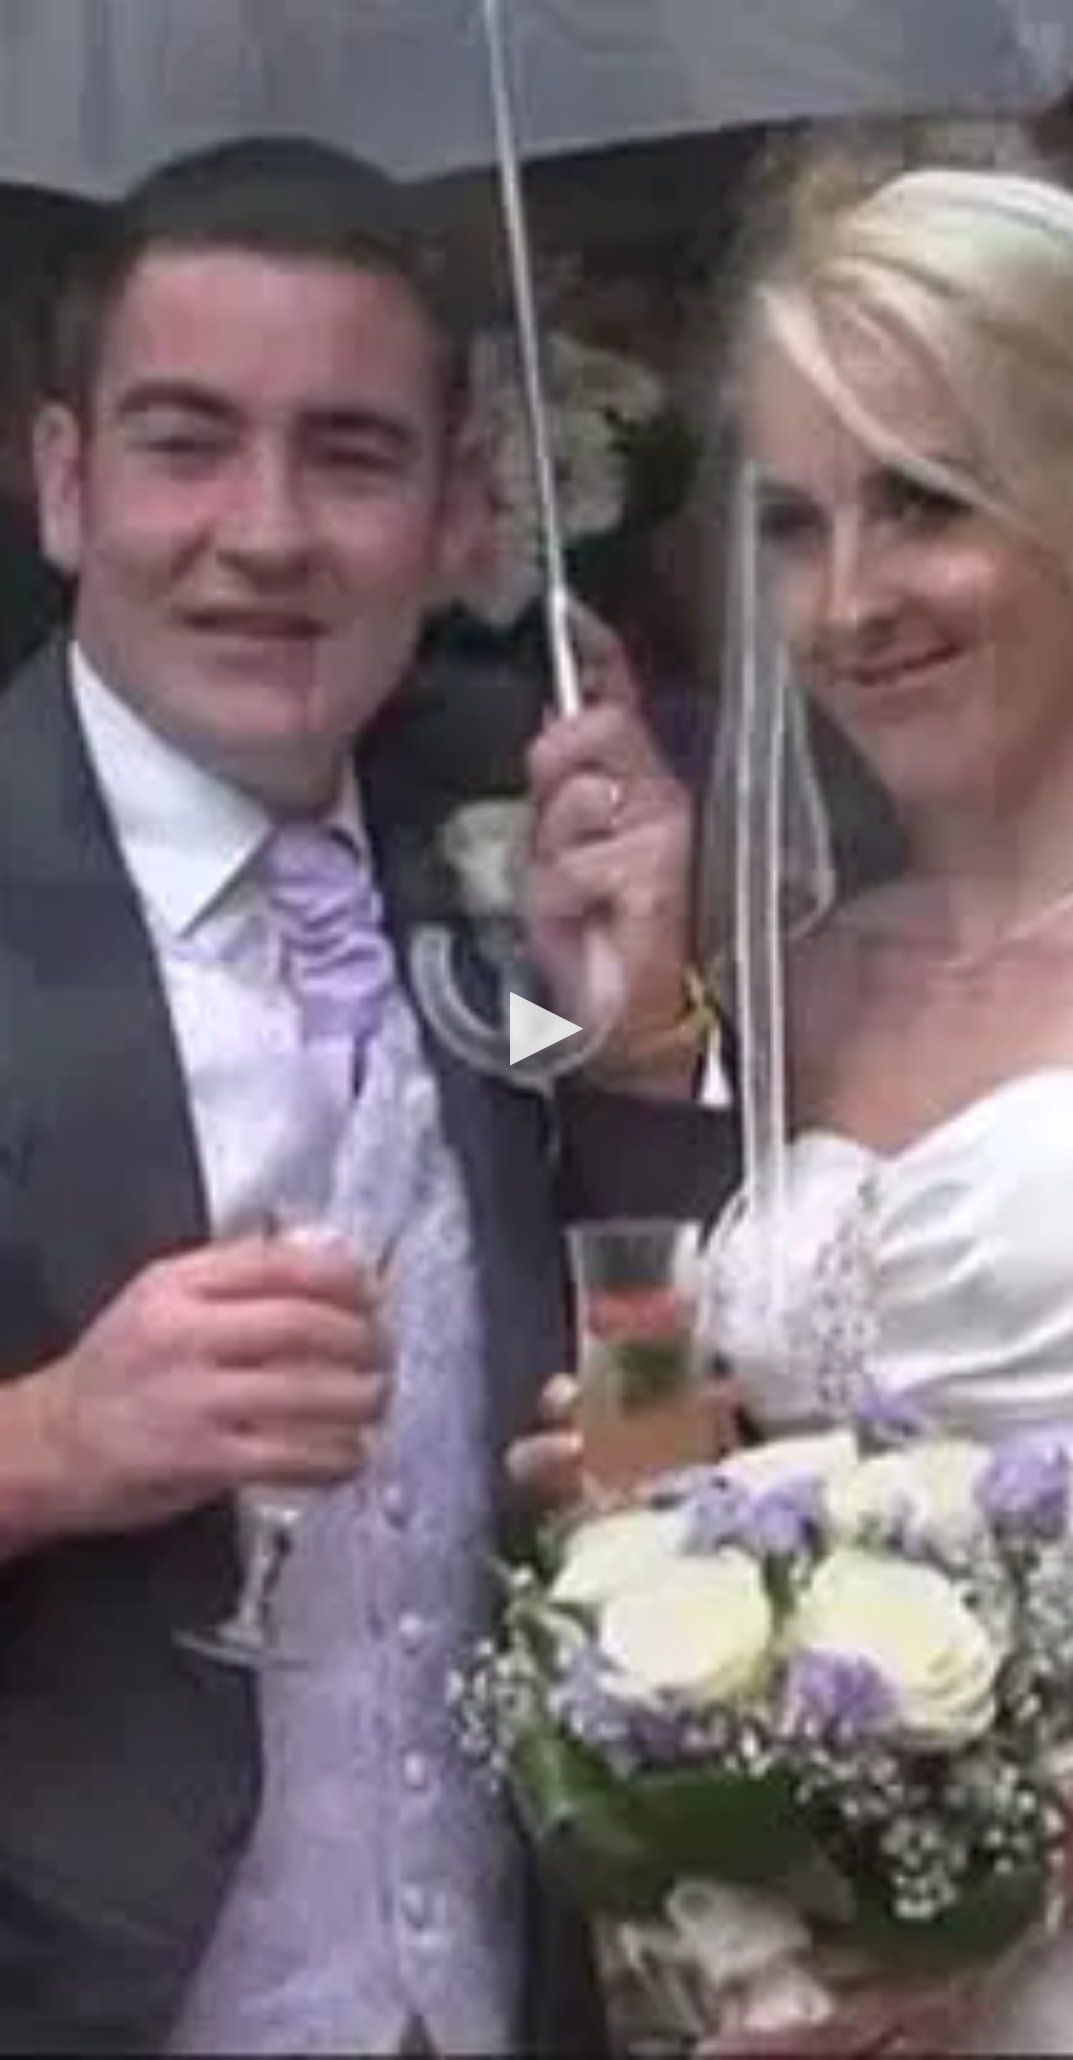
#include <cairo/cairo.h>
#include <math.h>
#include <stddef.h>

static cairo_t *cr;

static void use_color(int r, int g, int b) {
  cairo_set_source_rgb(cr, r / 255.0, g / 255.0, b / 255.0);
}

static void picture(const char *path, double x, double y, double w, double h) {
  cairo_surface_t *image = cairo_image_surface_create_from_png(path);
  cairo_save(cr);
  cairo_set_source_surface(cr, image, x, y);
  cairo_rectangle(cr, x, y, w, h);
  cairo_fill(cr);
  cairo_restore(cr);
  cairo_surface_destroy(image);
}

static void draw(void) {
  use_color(255, 255, 255);
  cairo_paint(cr);
  picture("img_01.png", 0, 0, 1073, 2060);
  cairo_set_source_rgba(cr, 1, 1, 1, 0.8);
  cairo_new_path(cr);
  cairo_move_to(cr, 511, 1065);
  cairo_curve_to(cr, 511, 1066, 510, 1065, 510, 1065);
  cairo_line_to(cr, 510, 993);
  cairo_line_to(cr, 511, 992);
  cairo_line_to(cr, 582, 1028);
  cairo_curve_to(cr, 583, 1028, 583, 1029, 583, 1029);
  cairo_close_path(cr);
  cairo_fill(cr);
}

int main(void) {
  cairo_surface_t *surface = cairo_image_surface_create(CAIRO_FORMAT_RGB24, 1073, 2060);
  cr = cairo_create(surface);
  cairo_font_options_t *options = cairo_font_options_create();
  cairo_font_options_set_hint_metrics(options, CAIRO_HINT_METRICS_OFF);
  cairo_font_options_set_hint_style(options, CAIRO_HINT_STYLE_NONE);
  cairo_set_font_options(cr, options);
  cairo_set_miter_limit(cr, 4);
  draw();
  cairo_surface_write_to_png(surface, "out.png");
  cairo_font_options_destroy(options);
  cairo_destroy(cr);
  cairo_surface_destroy(surface);
  return 0;
}
